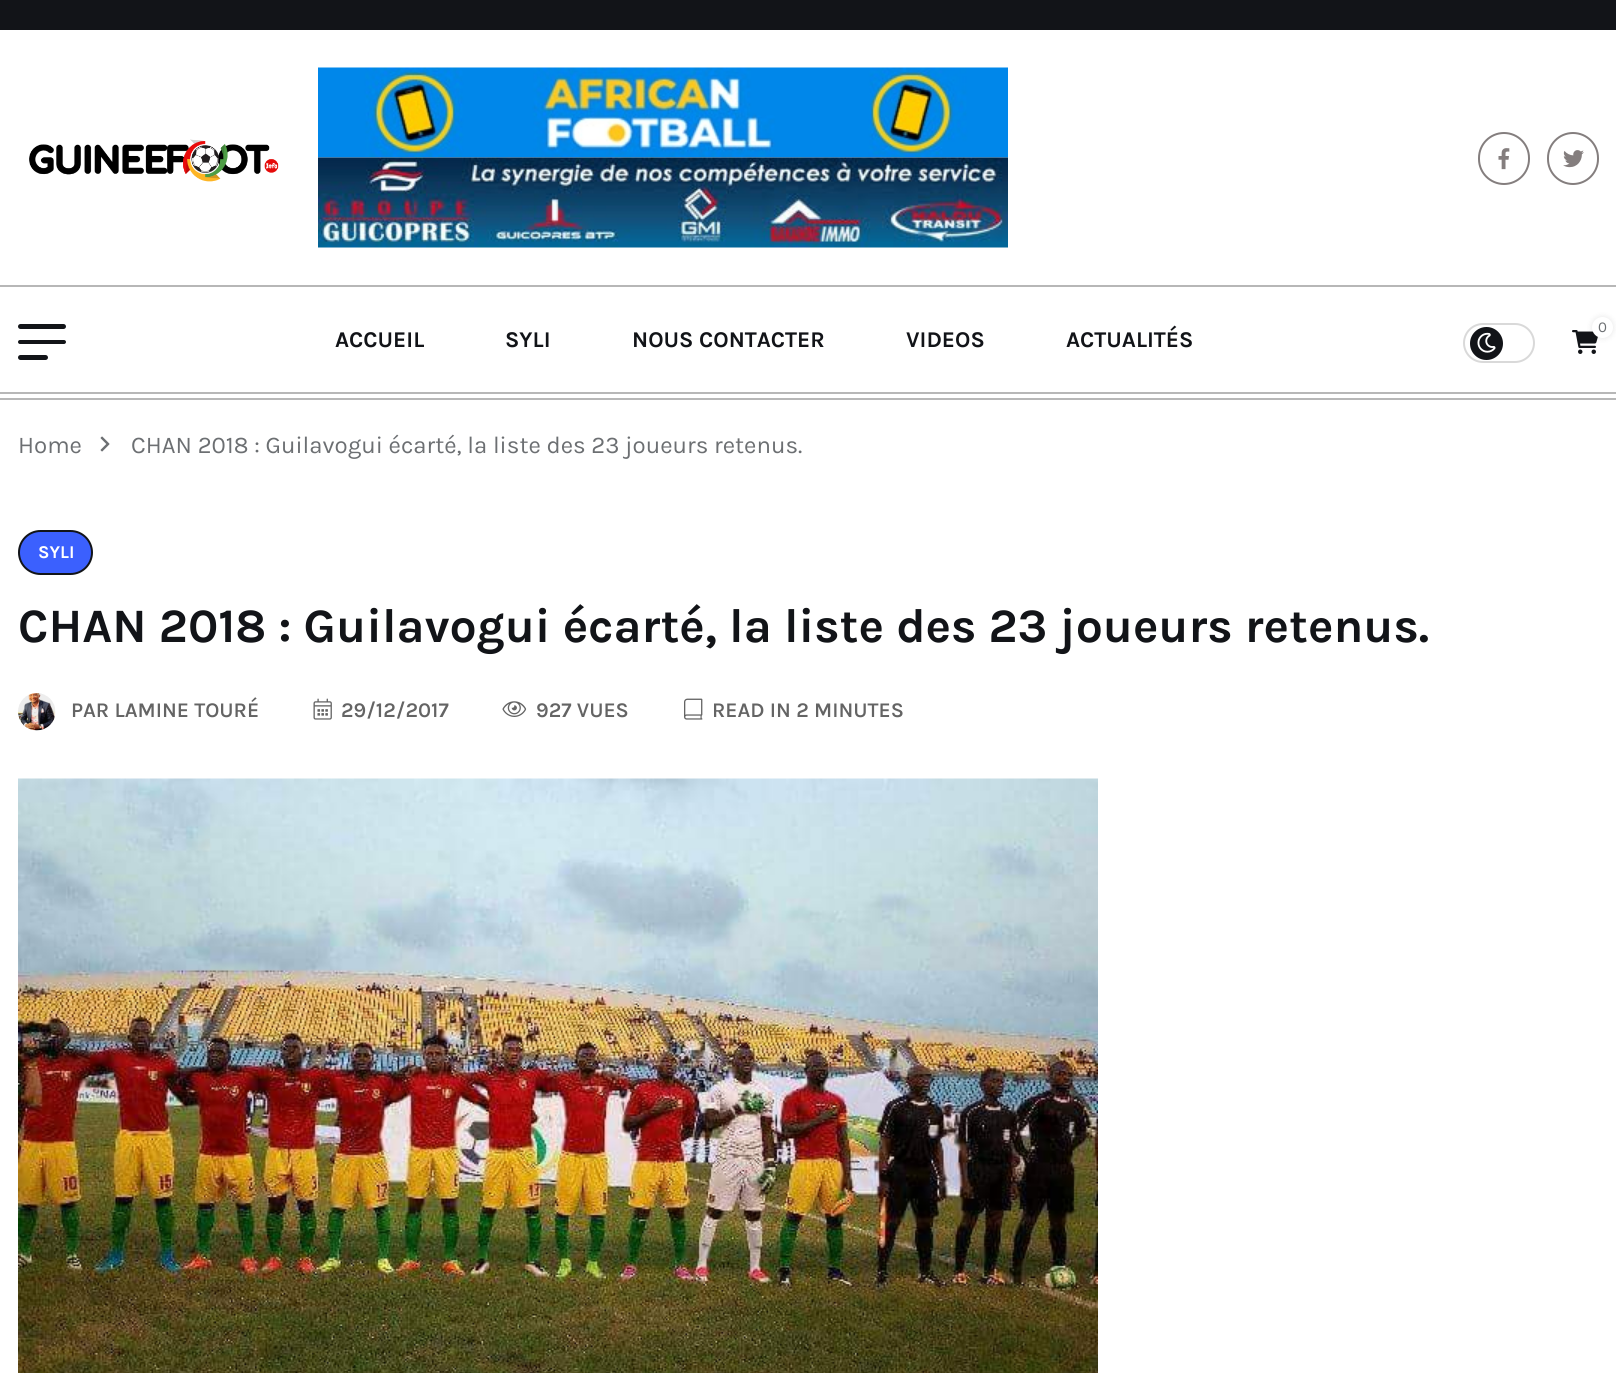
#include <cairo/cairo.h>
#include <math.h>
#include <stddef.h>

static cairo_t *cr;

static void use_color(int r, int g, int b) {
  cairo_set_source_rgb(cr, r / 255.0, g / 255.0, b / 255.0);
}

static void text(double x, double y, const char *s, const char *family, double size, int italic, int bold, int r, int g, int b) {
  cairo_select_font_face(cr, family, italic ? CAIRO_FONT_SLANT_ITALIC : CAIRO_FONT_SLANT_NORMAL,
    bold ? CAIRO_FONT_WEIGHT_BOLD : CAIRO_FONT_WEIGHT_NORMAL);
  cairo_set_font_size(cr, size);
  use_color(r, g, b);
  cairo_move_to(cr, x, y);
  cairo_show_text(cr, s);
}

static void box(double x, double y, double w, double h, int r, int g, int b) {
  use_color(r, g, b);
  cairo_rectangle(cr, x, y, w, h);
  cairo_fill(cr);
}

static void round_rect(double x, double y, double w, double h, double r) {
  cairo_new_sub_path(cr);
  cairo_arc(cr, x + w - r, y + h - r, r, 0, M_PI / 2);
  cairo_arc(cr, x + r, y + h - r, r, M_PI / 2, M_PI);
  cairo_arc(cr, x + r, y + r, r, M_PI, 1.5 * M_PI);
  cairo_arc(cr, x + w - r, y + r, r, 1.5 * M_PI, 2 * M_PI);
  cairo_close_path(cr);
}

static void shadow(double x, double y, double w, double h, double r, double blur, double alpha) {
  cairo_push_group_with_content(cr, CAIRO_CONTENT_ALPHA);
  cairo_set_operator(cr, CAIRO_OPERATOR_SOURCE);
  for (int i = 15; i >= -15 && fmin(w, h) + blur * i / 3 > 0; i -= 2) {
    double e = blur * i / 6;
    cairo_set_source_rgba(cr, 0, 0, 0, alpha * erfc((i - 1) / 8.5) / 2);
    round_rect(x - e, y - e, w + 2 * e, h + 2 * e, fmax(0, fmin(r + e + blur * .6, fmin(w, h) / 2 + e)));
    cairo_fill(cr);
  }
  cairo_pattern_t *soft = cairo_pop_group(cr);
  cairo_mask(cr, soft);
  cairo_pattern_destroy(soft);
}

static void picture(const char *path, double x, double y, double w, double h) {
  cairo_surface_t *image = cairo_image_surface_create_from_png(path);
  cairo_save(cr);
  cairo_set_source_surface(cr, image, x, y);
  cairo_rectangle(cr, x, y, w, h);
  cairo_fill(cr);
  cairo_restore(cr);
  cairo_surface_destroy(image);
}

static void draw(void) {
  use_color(255, 255, 255);
  cairo_paint(cr);
  box(0, 0, 1616, 30, 18, 20, 24);
  box(0, 285, 1616, 2, 183, 183, 183);
  picture("img_01.png", 29, 139, 250, 43);
  picture("img_02.png", 318, 67, 690, 91);
  picture("img_03.png", 318, 157, 690, 91);
  round_rect(1479, 133, 50, 51, 25);
  use_color(132, 126, 126);
  cairo_stroke(cr);
  picture("img_04.png", 1498, 148, 12, 22);
  round_rect(1548, 133, 50, 51, 25);
  cairo_stroke(cr);
  picture("img_05.png", 1563, 150, 21, 18);
  box(0, 392, 1616, 2, 183, 183, 183);
  use_color(18, 20, 24);
  round_rect(18, 324, 48, 5, 2.5);
  cairo_fill(cr);
  round_rect(18, 340, 48, 4, 2);
  cairo_fill(cr);
  round_rect(18, 355, 30, 5, 2.5);
  cairo_fill(cr);
  round_rect(1464, 324, 70, 38, 19);
  use_color(217, 217, 217);
  cairo_stroke(cr);
  use_color(18, 20, 24);
  cairo_arc(cr, 1486.5, 343.5, 16.5, 0, 2 * M_PI);
  cairo_fill(cr);
  picture("img_06.png", 1477, 332, 19, 21);
  picture("img_07.png", 1572, 330, 26, 24);
  use_color(0, 0, 0);
  shadow(1592, 317, 21, 21, 10.5, 3, 0.1);
  use_color(255, 255, 255);
  cairo_arc(cr, 1602.5, 327.5, 10.5, 0, 2 * M_PI);
  cairo_fill(cr);
  box(0, 398, 1616, 2, 183, 183, 183);
  picture("img_08.png", 100, 436, 10, 16);
  use_color(59, 96, 254);
  round_rect(19, 531, 73, 43, 21.5);
  cairo_fill_preserve(cr);
  use_color(18, 20, 24);
  cairo_stroke(cr);
  picture("img_09.png", 18, 693, 38, 38);
  picture("img_10.png", 313, 698, 19, 22);
  picture("img_11.png", 502, 701, 25, 16);
  picture("img_12.png", 684, 698, 19, 22);
  picture("img_13.png", 18, 778, 1080, 595);
  text(335, 347, "ACCUEIL", "Karla", 22.5, 0, 1, 18, 20, 24);
  text(505, 347, "SYLI", "Karla", 22.5, 0, 1, 18, 20, 24);
  text(632, 347, "NOUS CONTACTER", "Karla", 22.5, 0, 1, 18, 20, 24);
  text(906, 347, "VIDEOS", "Karla", 22.5, 0, 1, 18, 20, 24);
  text(1066, 347, "ACTUALITÉS", "Karla", 22.5, 0, 1, 18, 20, 24);
  text(1598, 332, "0", "Karla", 15, 0, 0, 108, 111, 114);
  text(18, 453, "Home", "Karla", 24, 0, 0, 108, 111, 114);
  text(131, 453, "CHAN 2018 : Guilavogui écarté, la liste des 23 joueurs retenus.", "Karla", 24, 0, 0, 108, 111, 114);
  text(38, 558, "SYLI", "Karla", 18, 0, 1, 255, 255, 255);
  text(18, 642, "CHAN 2018 : Guilavogui écarté, la liste des 23 joueurs retenus.", "Karla", 48, 0, 1, 18, 20, 24);
  text(71, 717, "PAR LAMINE TOURÉ", "Karla SemiBold", 21, 0, 0, 100, 100, 100);
  text(341, 717, "29/12/2017", "Karla SemiBold", 21, 0, 0, 100, 100, 100);
  text(536, 717, "927 VUES", "Karla SemiBold", 21, 0, 0, 100, 100, 100);
  text(712, 717, "READ IN 2 MINUTES", "Karla SemiBold", 21, 0, 0, 100, 100, 100);
}

int main(void) {
  cairo_surface_t *surface = cairo_image_surface_create(CAIRO_FORMAT_RGB24, 1616, 1373);
  cr = cairo_create(surface);
  cairo_font_options_t *options = cairo_font_options_create();
  cairo_font_options_set_hint_metrics(options, CAIRO_HINT_METRICS_OFF);
  cairo_font_options_set_hint_style(options, CAIRO_HINT_STYLE_NONE);
  cairo_set_font_options(cr, options);
  cairo_set_miter_limit(cr, 4);
  draw();
  cairo_surface_write_to_png(surface, "out.png");
  cairo_font_options_destroy(options);
  cairo_destroy(cr);
  cairo_surface_destroy(surface);
  return 0;
}
